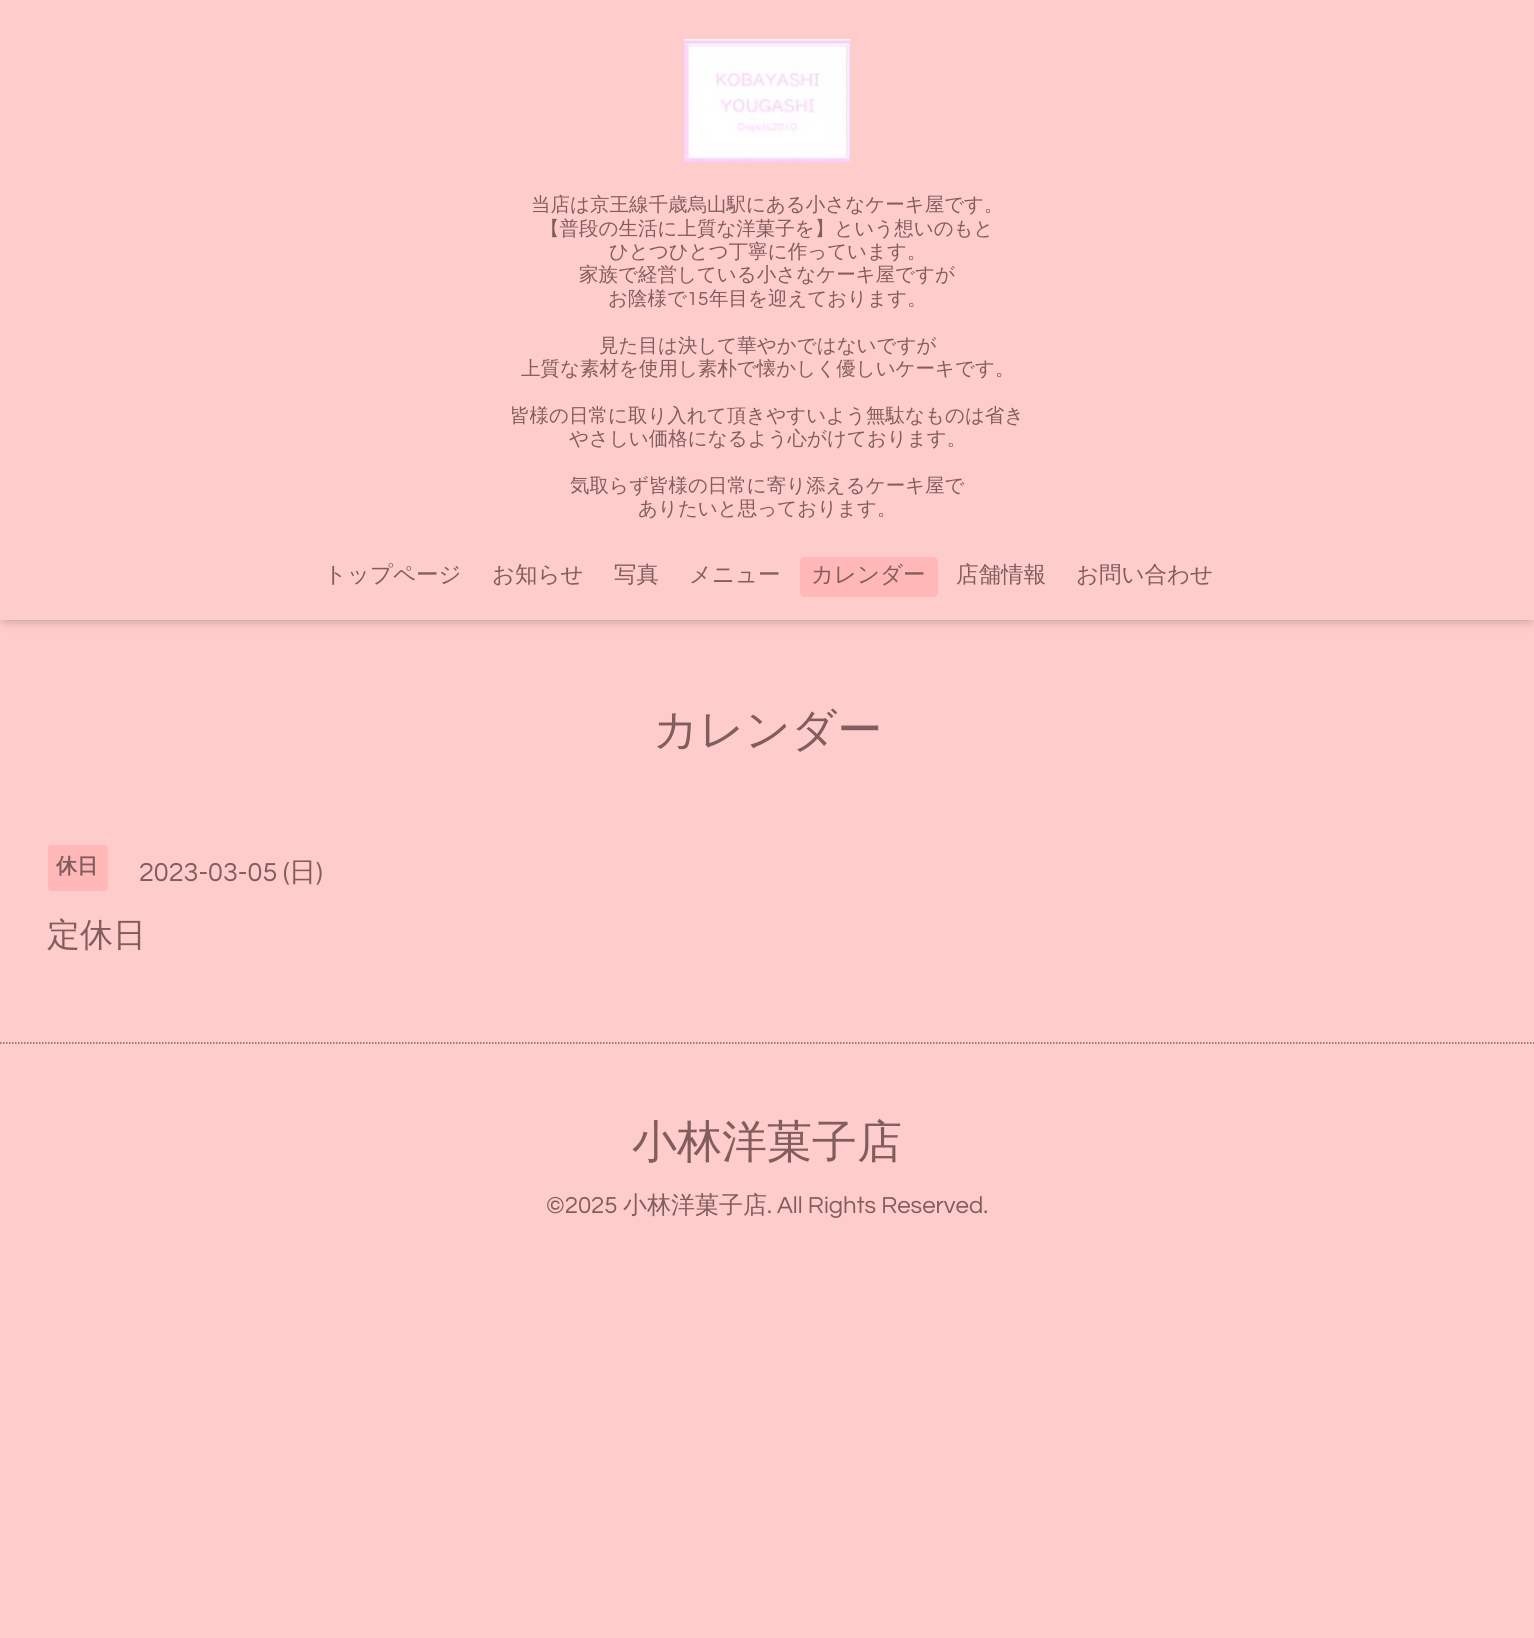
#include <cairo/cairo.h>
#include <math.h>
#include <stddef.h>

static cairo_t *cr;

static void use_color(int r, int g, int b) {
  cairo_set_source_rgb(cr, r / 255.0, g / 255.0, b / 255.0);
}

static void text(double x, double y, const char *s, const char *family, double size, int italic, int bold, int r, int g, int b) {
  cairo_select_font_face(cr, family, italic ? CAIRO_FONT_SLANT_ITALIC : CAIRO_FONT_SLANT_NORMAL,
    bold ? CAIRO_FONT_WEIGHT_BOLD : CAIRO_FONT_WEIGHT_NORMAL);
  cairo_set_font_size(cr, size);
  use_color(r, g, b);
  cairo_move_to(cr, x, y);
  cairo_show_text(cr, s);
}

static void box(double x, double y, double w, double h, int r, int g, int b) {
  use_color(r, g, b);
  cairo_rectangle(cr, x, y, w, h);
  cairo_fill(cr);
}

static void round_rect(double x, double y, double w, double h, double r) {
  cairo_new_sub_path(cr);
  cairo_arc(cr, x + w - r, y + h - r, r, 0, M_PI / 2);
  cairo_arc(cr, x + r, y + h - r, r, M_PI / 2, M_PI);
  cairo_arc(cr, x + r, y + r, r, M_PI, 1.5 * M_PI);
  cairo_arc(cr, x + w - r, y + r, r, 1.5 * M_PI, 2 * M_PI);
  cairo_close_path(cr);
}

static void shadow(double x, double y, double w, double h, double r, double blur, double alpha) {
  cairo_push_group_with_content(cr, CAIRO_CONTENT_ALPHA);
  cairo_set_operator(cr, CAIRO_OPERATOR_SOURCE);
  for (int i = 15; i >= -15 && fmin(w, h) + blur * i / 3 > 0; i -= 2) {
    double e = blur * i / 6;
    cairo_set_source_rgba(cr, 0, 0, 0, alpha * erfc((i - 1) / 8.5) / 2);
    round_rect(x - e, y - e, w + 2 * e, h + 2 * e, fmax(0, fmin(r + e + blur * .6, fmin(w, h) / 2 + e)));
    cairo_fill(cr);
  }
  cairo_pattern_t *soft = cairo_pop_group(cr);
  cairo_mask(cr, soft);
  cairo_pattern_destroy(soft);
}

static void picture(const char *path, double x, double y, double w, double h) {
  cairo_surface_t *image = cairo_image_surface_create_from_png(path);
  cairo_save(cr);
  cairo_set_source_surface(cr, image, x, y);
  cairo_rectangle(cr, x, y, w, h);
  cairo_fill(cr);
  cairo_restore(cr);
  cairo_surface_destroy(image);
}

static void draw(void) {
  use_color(255, 204, 204);
  cairo_paint(cr);
  use_color(0, 0, 0);
  shadow(6, 8, 1523, 607, 0, 7.5, 0.6);
  box(0, 0, 1534, 620, 255, 204, 204);
  picture("img_01.png", 684, 39, 167, 123);
  use_color(255, 183, 183);
  round_rect(800, 557, 138, 40, 5);
  cairo_fill(cr);
  round_rect(48, 845, 60, 46, 3);
  cairo_fill(cr);
  cairo_new_path(cr);
  cairo_move_to(cr, 0, 1043);
  cairo_line_to(cr, 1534.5, 1043);
  use_color(129, 93, 93);
  cairo_set_line_width(cr, 1.5);
  cairo_set_dash(cr, (double[]){1.5, 1.5}, 2, 0);
  cairo_stroke(cr);
  text(531, 211, "当店は京王線千歳烏山駅にある小さなケーキ屋です。", "WenQuanYi Zen Hei Medium", 19.5, 0, 0, 129, 93, 93);
  text(540, 235, "【普段の生活に上質な洋菓子を】という想いのもと", "WenQuanYi Zen Hei Medium", 19.5, 0, 0, 129, 93, 93);
  text(609, 258, "ひとつひとつ丁寧に作っています。", "WenQuanYi Zen Hei Medium", 19.5, 0, 0, 129, 93, 93);
  text(579, 281, "家族で経営している小さなケーキ屋ですが", "WenQuanYi Zen Hei Medium", 19.5, 0, 0, 129, 93, 93);
  text(608, 305, "お陰様で", "WenQuanYi Zen Hei Medium", 19.5, 0, 0, 129, 93, 93);
  text(687, 305, "15", "Questrial", 19.5, 0, 0, 129, 93, 93);
  text(709, 305, "年目を迎えております。", "WenQuanYi Zen Hei Medium", 19.5, 0, 0, 129, 93, 93);
  text(599, 352, "見た目は決して華やかではないですが", "WenQuanYi Zen Hei Medium", 19.5, 0, 0, 129, 93, 93);
  text(521, 375, "上質な素材を使用し素朴で懐かしく優しいケーキです。", "WenQuanYi Zen Hei Medium", 19.5, 0, 0, 129, 93, 93);
  text(510, 422, "皆様の日常に取り入れて頂きやすいよう無駄なものは省き", "WenQuanYi Zen Hei Medium", 19.5, 0, 0, 129, 93, 93);
  text(569, 445, "やさしい価格になるよう心がけております。", "WenQuanYi Zen Hei Medium", 19.5, 0, 0, 129, 93, 93);
  text(570, 492, "気取らず皆様の日常に寄り添えるケーキ屋で", "WenQuanYi Zen Hei Medium", 19.5, 0, 0, 129, 93, 93);
  text(638, 515, "ありたいと思っております。", "WenQuanYi Zen Hei Medium", 19.5, 0, 0, 129, 93, 93);
  text(324, 582, "トップページ", "WenQuanYi Zen Hei Medium", 22.5, 0, 0, 129, 93, 93);
  text(492, 582, "お知らせ", "WenQuanYi Zen Hei Medium", 22.5, 0, 0, 129, 93, 93);
  text(614, 582, "写真", "WenQuanYi Zen Hei Medium", 22.5, 0, 0, 129, 93, 93);
  text(689, 582, "メニュー", "WenQuanYi Zen Hei Medium", 22.5, 0, 0, 129, 93, 93);
  text(811, 582, "カレンダー", "WenQuanYi Zen Hei Medium", 22.5, 0, 0, 129, 93, 93);
  text(956, 582, "店舗情報", "WenQuanYi Zen Hei Medium", 22.5, 0, 0, 129, 93, 93);
  text(1076, 582, "お問い合わせ", "WenQuanYi Zen Hei Medium", 22.5, 0, 0, 129, 93, 93);
  text(653, 745, "カレンダー", "WenQuanYi Zen Hei Medium", 45, 0, 0, 129, 93, 93);
  text(56, 873, "休日", "WenQuanYi Zen Hei", 21, 0, 1, 129, 93, 93);
  text(139, 881, "2023-03-05 (", "Questrial", 27, 0, 0, 129, 93, 93);
  text(289, 881, "日", "WenQuanYi Zen Hei Medium", 27, 0, 0, 129, 93, 93);
  text(316, 881, ")", "Questrial", 27, 0, 0, 129, 93, 93);
  text(47, 946, "定休日", "WenQuanYi Zen Hei Medium", 33, 0, 0, 129, 93, 93);
  text(632, 1157, "小林洋菓子店", "WenQuanYi Zen Hei Medium", 45, 0, 0, 129, 93, 93);
  text(546, 1213, "©2025", "Questrial", 24, 0, 0, 129, 93, 93);
  text(623, 1213, "小林洋菓子店", "WenQuanYi Zen Hei Medium", 24, 0, 0, 129, 93, 93);
  text(767, 1213, ". All Rights Reserved.", "Questrial", 24, 0, 0, 129, 93, 93);
}

int main(void) {
  cairo_surface_t *surface = cairo_image_surface_create(CAIRO_FORMAT_RGB24, 1534, 1638);
  cr = cairo_create(surface);
  cairo_font_options_t *options = cairo_font_options_create();
  cairo_font_options_set_hint_metrics(options, CAIRO_HINT_METRICS_OFF);
  cairo_font_options_set_hint_style(options, CAIRO_HINT_STYLE_NONE);
  cairo_set_font_options(cr, options);
  cairo_set_miter_limit(cr, 4);
  draw();
  cairo_surface_write_to_png(surface, "out.png");
  cairo_font_options_destroy(options);
  cairo_destroy(cr);
  cairo_surface_destroy(surface);
  return 0;
}
